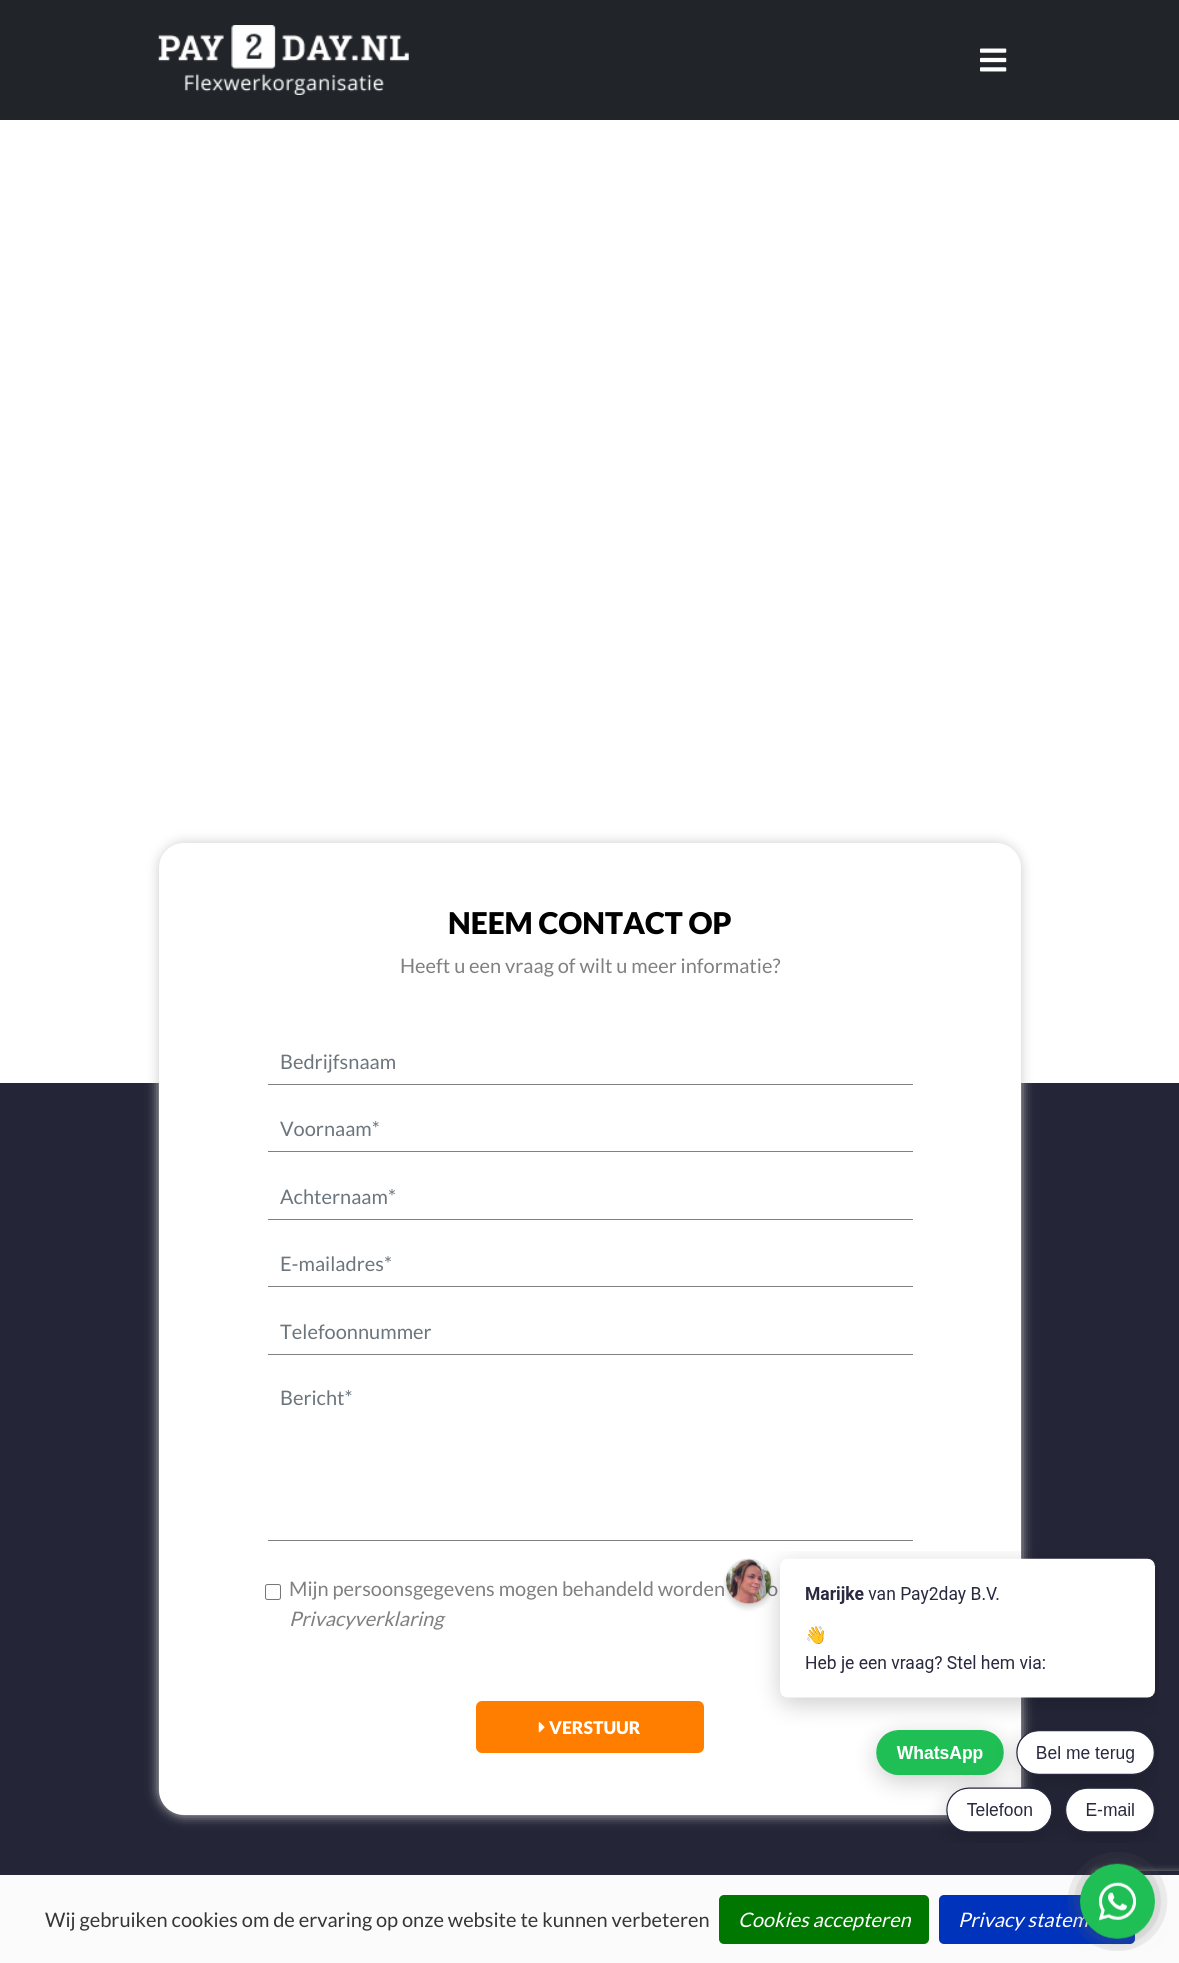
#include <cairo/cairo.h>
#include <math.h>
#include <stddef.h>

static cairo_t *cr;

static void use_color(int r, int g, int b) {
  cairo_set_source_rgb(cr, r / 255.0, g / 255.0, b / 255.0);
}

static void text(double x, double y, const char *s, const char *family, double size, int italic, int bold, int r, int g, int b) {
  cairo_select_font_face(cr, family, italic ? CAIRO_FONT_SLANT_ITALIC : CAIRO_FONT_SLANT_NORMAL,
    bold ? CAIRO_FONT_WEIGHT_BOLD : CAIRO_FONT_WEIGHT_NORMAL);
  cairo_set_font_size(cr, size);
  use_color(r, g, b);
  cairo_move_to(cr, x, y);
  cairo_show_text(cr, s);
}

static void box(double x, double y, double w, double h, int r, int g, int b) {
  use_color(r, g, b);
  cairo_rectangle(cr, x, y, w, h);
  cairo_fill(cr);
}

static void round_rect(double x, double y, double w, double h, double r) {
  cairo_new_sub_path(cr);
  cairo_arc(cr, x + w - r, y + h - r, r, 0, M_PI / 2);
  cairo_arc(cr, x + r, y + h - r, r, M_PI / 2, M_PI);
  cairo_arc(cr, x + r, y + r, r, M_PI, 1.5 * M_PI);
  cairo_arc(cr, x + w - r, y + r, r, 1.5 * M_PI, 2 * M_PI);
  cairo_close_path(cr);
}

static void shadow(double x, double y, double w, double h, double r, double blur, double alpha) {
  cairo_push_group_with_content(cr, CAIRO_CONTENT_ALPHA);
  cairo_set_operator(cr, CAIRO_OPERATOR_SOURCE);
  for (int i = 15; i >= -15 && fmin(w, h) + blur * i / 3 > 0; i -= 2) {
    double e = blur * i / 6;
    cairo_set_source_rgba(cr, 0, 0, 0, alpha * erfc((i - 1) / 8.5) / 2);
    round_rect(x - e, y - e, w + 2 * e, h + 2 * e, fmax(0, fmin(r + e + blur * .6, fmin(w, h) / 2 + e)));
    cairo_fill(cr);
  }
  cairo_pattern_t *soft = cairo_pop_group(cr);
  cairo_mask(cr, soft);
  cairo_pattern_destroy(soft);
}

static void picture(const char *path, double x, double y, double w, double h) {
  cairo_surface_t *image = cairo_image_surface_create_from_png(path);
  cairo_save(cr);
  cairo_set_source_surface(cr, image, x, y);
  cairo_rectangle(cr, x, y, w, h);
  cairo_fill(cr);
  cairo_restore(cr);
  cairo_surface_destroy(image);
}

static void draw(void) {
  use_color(255, 255, 255);
  cairo_paint(cr);
  box(0, 0, 1179, 120, 33, 37, 41);
  picture("img_01.png", 158, 25, 251, 70);
  picture("img_02.png", 980, 48, 27, 24);
  box(0, 1083, 1179, 792, 36, 37, 55);
  use_color(204, 204, 204);
  shadow(159, 843, 862, 972, 25, 6, 1);
  use_color(255, 255, 255);
  round_rect(159, 843, 862, 972, 25);
  cairo_fill(cr);
  box(268, 1084, 645, 1, 128, 128, 128);
  box(268, 1151, 645, 1, 128, 128, 128);
  box(268, 1219, 645, 1, 128, 128, 128);
  box(268, 1286, 645, 1, 128, 128, 128);
  box(268, 1354, 645, 1, 128, 128, 128);
  box(268, 1540, 645, 1, 128, 128, 128);
  round_rect(265.5, 1584.5, 15, 15, 2);
  use_color(118, 118, 118);
  cairo_set_line_width(cr, 1);
  cairo_stroke(cr);
  use_color(255, 126, 0);
  round_rect(476, 1701, 228, 52, 6);
  cairo_fill(cr);
  picture("img_03.png", 538, 1722, 7, 11);
  cairo_save(cr);
  cairo_set_fill_rule(cr, CAIRO_FILL_RULE_EVEN_ODD);
  cairo_new_path(cr);
  cairo_move_to(cr, 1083, 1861);
  cairo_line_to(cr, 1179, 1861);
  cairo_line_to(cr, 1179, 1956);
  cairo_line_to(cr, 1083, 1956);
  cairo_close_path(cr);
  cairo_move_to(cr, 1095.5, 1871);
  cairo_line_to(cr, 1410.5, 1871);
  cairo_curve_to(cr, 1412, 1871, 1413, 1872, 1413, 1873.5);
  cairo_line_to(cr, 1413, 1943.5);
  cairo_curve_to(cr, 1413, 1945, 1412, 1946, 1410.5, 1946);
  cairo_line_to(cr, 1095.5, 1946);
  cairo_curve_to(cr, 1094, 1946, 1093, 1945, 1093, 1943.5);
  cairo_line_to(cr, 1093, 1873.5);
  cairo_curve_to(cr, 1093, 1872, 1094, 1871, 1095.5, 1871);
  cairo_close_path(cr);
  cairo_clip(cr);
  use_color(128, 128, 128);
  shadow(1093, 1871, 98, 75, 2.5, 3, 1);
  cairo_restore(cr);
  box(0, 1875, 1179, 88, 251, 251, 251);
  use_color(0, 119, 0);
  round_rect(719, 1895, 210, 49, 5);
  cairo_fill(cr);
  use_color(0, 51, 187);
  round_rect(939, 1895, 196, 49, 5);
  cairo_fill(cr);
  text(448, 934, "NEEM CONTACT OP", "Lato Black", 30, 0, 0, 0, 0, 0);
  text(400, 973, "Heeft u een vraag of wilt u meer informatie?", "Lato", 20, 0, 0, 128, 128, 128);
  text(280, 1069, "Bedrijfsnaam", "Lato", 20, 0, 0, 108, 117, 125);
  text(280, 1136, "Voornaam*", "Lato", 20, 0, 0, 108, 117, 125);
  text(280, 1204, "Achternaam*", "Lato", 20, 0, 0, 108, 117, 125);
  text(280, 1271, "E-mailadres*", "Lato", 20, 0, 0, 108, 117, 125);
  text(280, 1339, "Telefoonnummer", "Lato", 20, 0, 0, 108, 117, 125);
  text(280, 1405, "Bericht*", "Lato", 20, 0, 0, 108, 117, 125);
  text(289, 1596, "Mijn persoonsgegevens mogen behandeld worden", "Lato", 20, 0, 0, 128, 128, 128);
  text(767, 1596, "o", "Lato", 20, 0, 0, 128, 128, 128);
  text(289, 1626, "Privacyverklaring", "Lato", 20, 1, 0, 128, 128, 128);
  text(549, 1734, "VERSTUUR", "Lato Black", 17.5, 0, 0, 255, 255, 255);
  text(45, 1927, "Wij gebruiken cookies om de ervaring op onze website te kunnen verbeteren", "Lato", 20, 0, 0, 54, 54, 54);
  text(738, 1927, "Cookies accepteren", "Lato", 20, 1, 0, 255, 255, 255);
  text(958, 1927, "Privacy statem", "Lato", 20, 1, 0, 255, 255, 255);
  picture("img_04.png", 723, 1551, 436, 292);
  picture("img_05.png", 1068, 1852, 100, 99);
}

int main(void) {
  cairo_surface_t *surface = cairo_image_surface_create(CAIRO_FORMAT_RGB24, 1179, 1963);
  cr = cairo_create(surface);
  cairo_font_options_t *options = cairo_font_options_create();
  cairo_font_options_set_hint_metrics(options, CAIRO_HINT_METRICS_OFF);
  cairo_font_options_set_hint_style(options, CAIRO_HINT_STYLE_NONE);
  cairo_set_font_options(cr, options);
  cairo_set_miter_limit(cr, 4);
  draw();
  cairo_surface_write_to_png(surface, "out.png");
  cairo_font_options_destroy(options);
  cairo_destroy(cr);
  cairo_surface_destroy(surface);
  return 0;
}
